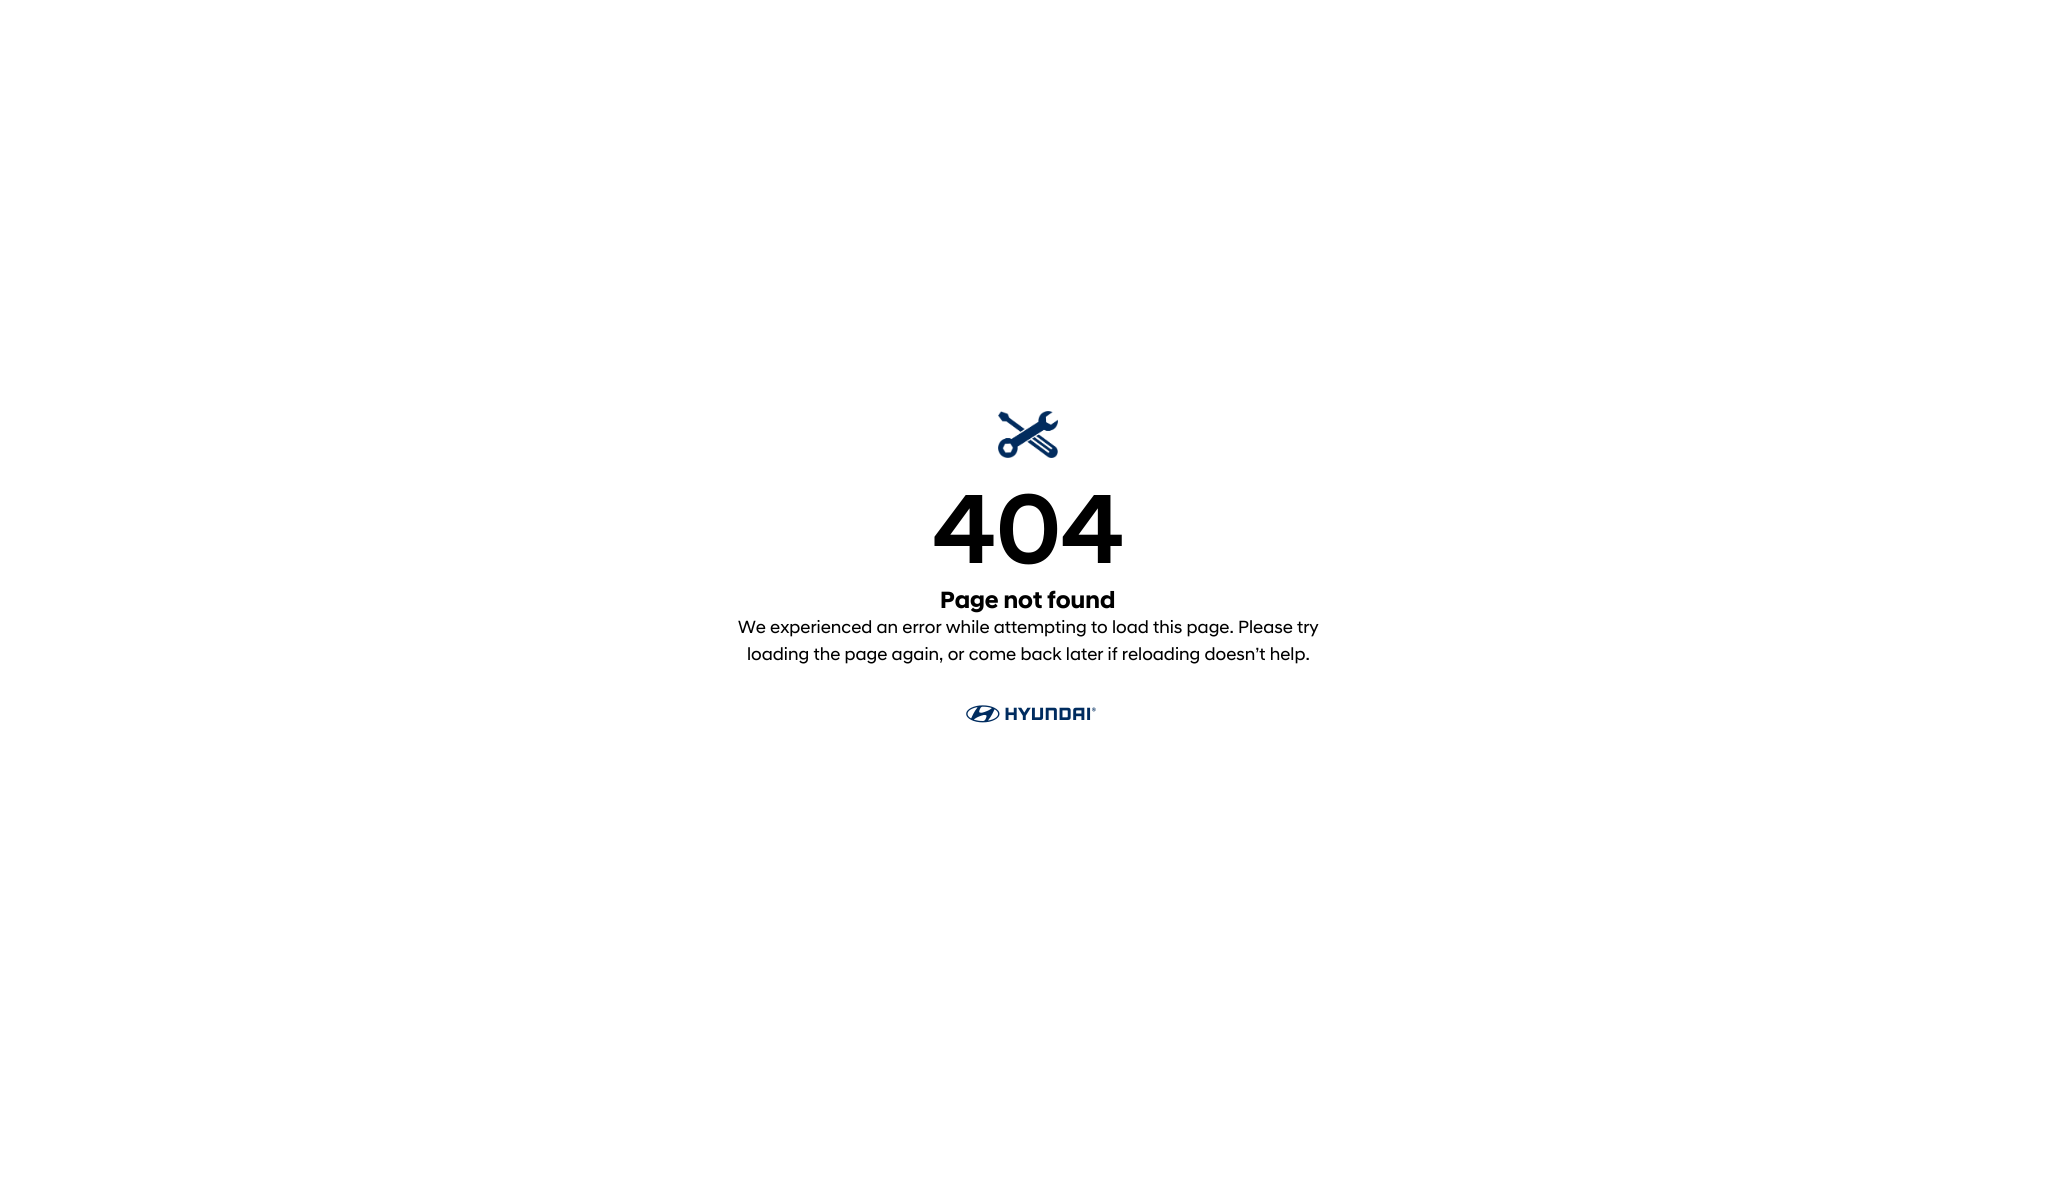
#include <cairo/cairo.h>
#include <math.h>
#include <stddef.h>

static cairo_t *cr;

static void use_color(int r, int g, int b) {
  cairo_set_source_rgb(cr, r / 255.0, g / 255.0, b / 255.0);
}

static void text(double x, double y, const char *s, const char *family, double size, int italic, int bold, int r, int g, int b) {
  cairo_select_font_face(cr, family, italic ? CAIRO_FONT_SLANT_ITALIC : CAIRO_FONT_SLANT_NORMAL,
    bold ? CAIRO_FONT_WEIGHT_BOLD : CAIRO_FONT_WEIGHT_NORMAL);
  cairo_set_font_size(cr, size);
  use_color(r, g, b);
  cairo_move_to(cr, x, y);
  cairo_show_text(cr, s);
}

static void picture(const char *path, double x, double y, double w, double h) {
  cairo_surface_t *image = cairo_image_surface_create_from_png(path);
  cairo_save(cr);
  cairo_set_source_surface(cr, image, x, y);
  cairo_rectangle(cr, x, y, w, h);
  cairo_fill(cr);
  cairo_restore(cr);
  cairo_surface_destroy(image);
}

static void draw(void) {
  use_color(255, 255, 255);
  cairo_paint(cr);
  picture("img_01.png", 998, 411, 60, 47);
  picture("img_02.png", 966, 705, 130, 18);
  text(933, 563, "404", "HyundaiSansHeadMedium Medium", 100, 0, 0, 0, 0, 0);
  text(940, 608, "Page not found", "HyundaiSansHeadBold", 24, 0, 1, 0, 0, 0);
  text(738, 633, "We experienced an error while attempting to load this page. Please try", "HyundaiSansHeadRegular", 18, 0, 0, 0, 0, 0);
  text(747, 660, "loading the page again, or come back later if reloading doesn’t help.", "HyundaiSansHeadRegular", 18, 0, 0, 0, 0, 0);
}

int main(void) {
  cairo_surface_t *surface = cairo_image_surface_create(CAIRO_FORMAT_RGB24, 2056, 1192);
  cr = cairo_create(surface);
  cairo_font_options_t *options = cairo_font_options_create();
  cairo_font_options_set_hint_metrics(options, CAIRO_HINT_METRICS_OFF);
  cairo_font_options_set_hint_style(options, CAIRO_HINT_STYLE_NONE);
  cairo_set_font_options(cr, options);
  cairo_set_miter_limit(cr, 4);
  draw();
  cairo_surface_write_to_png(surface, "out.png");
  cairo_font_options_destroy(options);
  cairo_destroy(cr);
  cairo_surface_destroy(surface);
  return 0;
}
